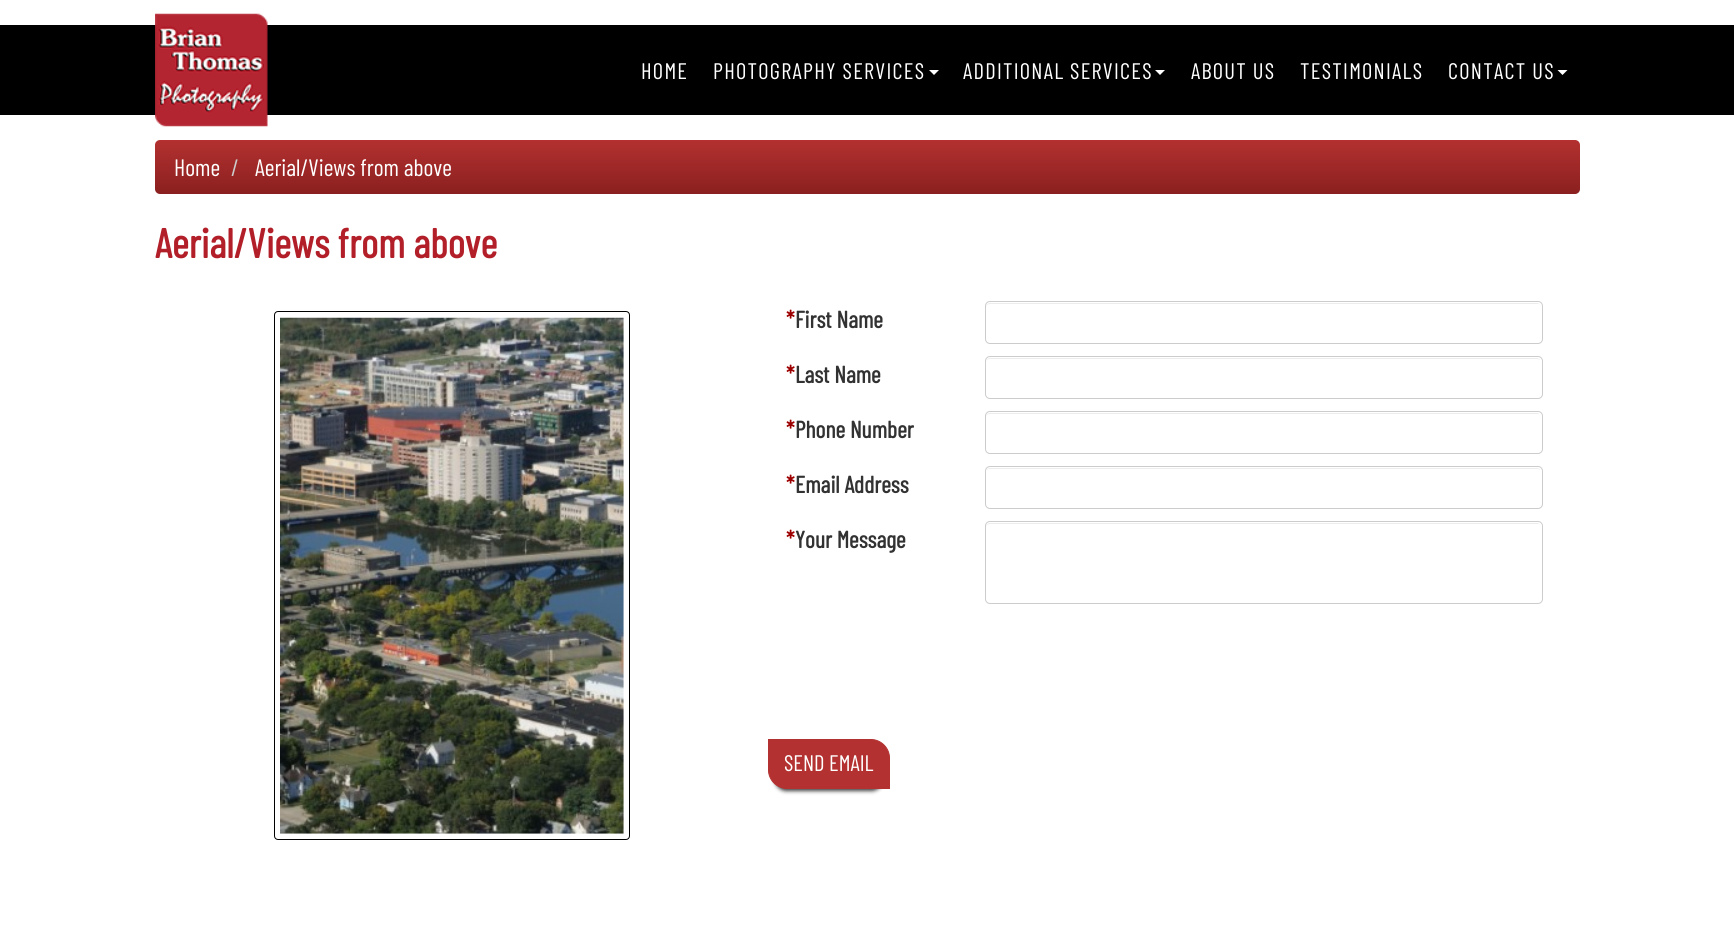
#include <cairo/cairo.h>
#include <math.h>
#include <stddef.h>

static cairo_t *cr;

static void use_color(int r, int g, int b) {
  cairo_set_source_rgb(cr, r / 255.0, g / 255.0, b / 255.0);
}

static void text(double x, double y, const char *s, const char *family, double size, int italic, int bold, int r, int g, int b) {
  cairo_select_font_face(cr, family, italic ? CAIRO_FONT_SLANT_ITALIC : CAIRO_FONT_SLANT_NORMAL,
    bold ? CAIRO_FONT_WEIGHT_BOLD : CAIRO_FONT_WEIGHT_NORMAL);
  cairo_set_font_size(cr, size);
  use_color(r, g, b);
  cairo_move_to(cr, x, y);
  cairo_show_text(cr, s);
}

static void spaced_text(double x, double y, const char *s, double letter, double word) {
  cairo_move_to(cr, x, y);
  while (*s) {
    char ch[5] = {0};
    int n = 0;
    do ch[n++] = *s++; while ((*s & 0xC0) == 0x80);
    cairo_show_text(cr, ch);
    cairo_rel_move_to(cr, letter + word * (*ch == ' '), 0);
  }
}

static void box(double x, double y, double w, double h, int r, int g, int b) {
  use_color(r, g, b);
  cairo_rectangle(cr, x, y, w, h);
  cairo_fill(cr);
}

static void round_rect(double x, double y, double w, double h, double r) {
  cairo_new_sub_path(cr);
  cairo_arc(cr, x + w - r, y + h - r, r, 0, M_PI / 2);
  cairo_arc(cr, x + r, y + h - r, r, M_PI / 2, M_PI);
  cairo_arc(cr, x + r, y + r, r, M_PI, 1.5 * M_PI);
  cairo_arc(cr, x + w - r, y + r, r, 1.5 * M_PI, 2 * M_PI);
  cairo_close_path(cr);
}

static void shadow(double x, double y, double w, double h, double r, double blur, double alpha) {
  cairo_push_group_with_content(cr, CAIRO_CONTENT_ALPHA);
  cairo_set_operator(cr, CAIRO_OPERATOR_SOURCE);
  for (int i = 15; i >= -15 && fmin(w, h) + blur * i / 3 > 0; i -= 2) {
    double e = blur * i / 6;
    cairo_set_source_rgba(cr, 0, 0, 0, alpha * erfc((i - 1) / 8.5) / 2);
    round_rect(x - e, y - e, w + 2 * e, h + 2 * e, fmax(0, fmin(r + e + blur * .6, fmin(w, h) / 2 + e)));
    cairo_fill(cr);
  }
  cairo_pattern_t *soft = cairo_pop_group(cr);
  cairo_mask(cr, soft);
  cairo_pattern_destroy(soft);
}

static void picture(const char *path, double x, double y, double w, double h) {
  cairo_surface_t *image = cairo_image_surface_create_from_png(path);
  cairo_save(cr);
  cairo_set_source_surface(cr, image, x, y);
  cairo_rectangle(cr, x, y, w, h);
  cairo_fill(cr);
  cairo_restore(cr);
  cairo_surface_destroy(image);
}

static void draw(void) {
  cairo_pattern_t *gradient;
  use_color(255, 255, 255);
  cairo_paint(cr);
  box(0, 25, 1734, 90, 0, 0, 0);
  picture("img_01.png", 155, 13, 113, 114);
  use_color(255, 255, 255);
  cairo_new_path(cr);
  cairo_move_to(cr, 929, 70);
  cairo_line_to(cr, 939, 70);
  cairo_line_to(cr, 934, 75);
  cairo_close_path(cr);
  cairo_fill(cr);
  cairo_new_path(cr);
  cairo_move_to(cr, 1155, 70);
  cairo_line_to(cr, 1165, 70);
  cairo_line_to(cr, 1160, 75);
  cairo_close_path(cr);
  cairo_fill(cr);
  cairo_new_path(cr);
  cairo_move_to(cr, 1557.5, 70);
  cairo_line_to(cr, 1567.5, 70);
  cairo_line_to(cr, 1562.5, 75);
  cairo_close_path(cr);
  cairo_fill(cr);
  gradient = cairo_pattern_create_linear(868, 140, 868, 194);
  cairo_pattern_add_color_stop_rgba(gradient, 0, 0.702, 0.192, 0.188, 1);
  cairo_pattern_add_color_stop_rgba(gradient, 1, 0.541, 0.125, 0.122, 1);
  cairo_set_source(cr, gradient);
  cairo_pattern_destroy(gradient);
  round_rect(155, 140, 1425, 54, 5);
  cairo_fill(cr);
  round_rect(274.5, 311.5, 355, 528, 3.5);
  use_color(0, 0, 0);
  cairo_set_line_width(cr, 1);
  cairo_stroke(cr);
  picture("img_02.png", 280, 317, 344, 517);
  use_color(236, 236, 236);
  cairo_new_path(cr);
  cairo_move_to(cr, 990, 304);
  cairo_line_to(cr, 1538, 304);
  cairo_curve_to(cr, 1540, 304, 1541, 305, 1541, 308);
  cairo_line_to(cr, 1541, 307);
  cairo_curve_to(cr, 1541, 305, 1539, 303, 1537, 303);
  cairo_line_to(cr, 990, 303);
  cairo_curve_to(cr, 988, 303, 986, 305, 986, 307);
  cairo_line_to(cr, 986, 308);
  cairo_curve_to(cr, 986, 305, 988, 304, 990, 304);
  cairo_close_path(cr);
  cairo_fill(cr);
  round_rect(985.5, 301.5, 557, 42, 4.5);
  use_color(204, 204, 204);
  cairo_stroke(cr);
  use_color(236, 236, 236);
  cairo_new_path(cr);
  cairo_move_to(cr, 990, 359);
  cairo_line_to(cr, 1538, 359);
  cairo_line_to(cr, 1540, 360);
  cairo_curve_to(cr, 1540, 359, 1538, 358, 1537, 358);
  cairo_line_to(cr, 990, 358);
  cairo_curve_to(cr, 988, 358, 986, 360, 986, 362);
  cairo_curve_to(cr, 986, 360, 988, 359, 990, 359);
  cairo_close_path(cr);
  cairo_fill(cr);
  round_rect(985.5, 356.5, 557, 42, 4.5);
  use_color(204, 204, 204);
  cairo_stroke(cr);
  use_color(236, 236, 236);
  cairo_new_path(cr);
  cairo_move_to(cr, 990, 414);
  cairo_line_to(cr, 1538, 414);
  cairo_curve_to(cr, 1540, 414, 1541, 415, 1541, 418);
  cairo_line_to(cr, 1541, 417);
  cairo_curve_to(cr, 1541, 415, 1539, 413, 1537, 413);
  cairo_line_to(cr, 990, 413);
  cairo_curve_to(cr, 988, 413, 986, 415, 986, 417);
  cairo_line_to(cr, 986, 418);
  cairo_curve_to(cr, 986, 415, 988, 414, 990, 414);
  cairo_close_path(cr);
  cairo_fill(cr);
  round_rect(985.5, 411.5, 557, 42, 4.5);
  use_color(204, 204, 204);
  cairo_stroke(cr);
  use_color(236, 236, 236);
  cairo_new_path(cr);
  cairo_move_to(cr, 990, 469);
  cairo_line_to(cr, 1538, 469);
  cairo_line_to(cr, 1540, 470);
  cairo_curve_to(cr, 1540, 469, 1538, 468, 1537, 468);
  cairo_line_to(cr, 990, 468);
  cairo_curve_to(cr, 988, 468, 986, 470, 986, 472);
  cairo_curve_to(cr, 986, 470, 988, 469, 990, 469);
  cairo_close_path(cr);
  cairo_fill(cr);
  round_rect(985.5, 466.5, 557, 42, 4.5);
  use_color(204, 204, 204);
  cairo_stroke(cr);
  use_color(236, 236, 236);
  cairo_new_path(cr);
  cairo_move_to(cr, 990, 524);
  cairo_line_to(cr, 1538, 524);
  cairo_curve_to(cr, 1540, 524, 1541, 525, 1541, 528);
  cairo_line_to(cr, 1541, 527);
  cairo_curve_to(cr, 1541, 525, 1539, 523, 1537, 523);
  cairo_line_to(cr, 990, 523);
  cairo_curve_to(cr, 988, 523, 986, 525, 986, 527);
  cairo_line_to(cr, 986, 528);
  cairo_curve_to(cr, 986, 525, 988, 524, 990, 524);
  cairo_close_path(cr);
  cairo_fill(cr);
  round_rect(985.5, 521.5, 557, 82, 4.5);
  use_color(204, 204, 204);
  cairo_stroke(cr);
  use_color(0, 0, 0);
  shadow(775, 756, 108, 35, 11, 2, 0.75);
  use_color(179, 49, 48);
  cairo_new_path(cr);
  cairo_move_to(cr, 768.5, 739.5);
  cairo_line_to(cr, 871, 739.5);
  cairo_curve_to(cr, 881, 739.5, 889.5, 748, 889.5, 758);
  cairo_line_to(cr, 889.5, 788.5);
  cairo_line_to(cr, 787, 788.5);
  cairo_curve_to(cr, 777, 788.5, 768.5, 780, 768.5, 770);
  cairo_close_path(cr);
  cairo_fill_preserve(cr);
  cairo_stroke(cr);
  cairo_select_font_face(cr, "Barlow Condensed", CAIRO_FONT_SLANT_NORMAL, CAIRO_FONT_WEIGHT_NORMAL);
  cairo_set_font_size(cr, 22.5);
  use_color(255, 255, 255);
  spaced_text(641, 79, "HOME", 1.25, 0);
  spaced_text(713, 79, "PHOTOGRAPHY SERVICES", 1.25, 0);
  spaced_text(963, 79, "ADDITIONAL SERVICES", 1.25, 0);
  spaced_text(1191, 79, "ABOUT US", 1.25, 0);
  spaced_text(1300, 79, "TESTIMONIALS", 1.25, 0);
  spaced_text(1448, 79, "CONTACT US", 1.25, 0);
  text(174, 176, "Home", "Barlow Condensed", 23.75, 0, 0, 255, 255, 255);
  text(231, 176, "/", "Barlow Condensed", 23.75, 0, 0, 204, 204, 204);
  text(255, 176, "Aerial/Views from above", "Barlow Condensed", 23.75, 0, 0, 255, 255, 255);
  text(155, 258, "Aerial/Views from above", "Barlow Condensed", 41.25, 0, 1, 178, 31, 41);
  text(786, 328, "*", "Barlow Condensed", 23.75, 0, 1, 157, 0, 0);
  text(795, 328, "First Name", "Barlow Condensed", 23.75, 0, 1, 50, 50, 50);
  text(786, 383, "*", "Barlow Condensed", 23.75, 0, 1, 157, 0, 0);
  text(795, 383, "Last Name", "Barlow Condensed", 23.75, 0, 1, 50, 50, 50);
  text(786, 438, "*", "Barlow Condensed", 23.75, 0, 1, 157, 0, 0);
  text(795, 438, "Phone Number", "Barlow Condensed", 23.75, 0, 1, 50, 50, 50);
  text(786, 493, "*", "Barlow Condensed", 23.75, 0, 1, 157, 0, 0);
  text(795, 493, "Email Address", "Barlow Condensed", 23.75, 0, 1, 50, 50, 50);
  text(786, 548, "*", "Barlow Condensed", 23.75, 0, 1, 157, 0, 0);
  text(795, 548, "Your Message", "Barlow Condensed", 23.75, 0, 1, 50, 50, 50);
  text(784, 771, "SEND EMAIL", "Barlow Condensed", 22.5, 0, 0, 255, 255, 255);
}

int main(void) {
  cairo_surface_t *surface = cairo_image_surface_create(CAIRO_FORMAT_RGB24, 1734, 938);
  cr = cairo_create(surface);
  cairo_font_options_t *options = cairo_font_options_create();
  cairo_font_options_set_hint_metrics(options, CAIRO_HINT_METRICS_OFF);
  cairo_font_options_set_hint_style(options, CAIRO_HINT_STYLE_NONE);
  cairo_set_font_options(cr, options);
  cairo_set_miter_limit(cr, 4);
  draw();
  cairo_surface_write_to_png(surface, "out.png");
  cairo_font_options_destroy(options);
  cairo_destroy(cr);
  cairo_surface_destroy(surface);
  return 0;
}
